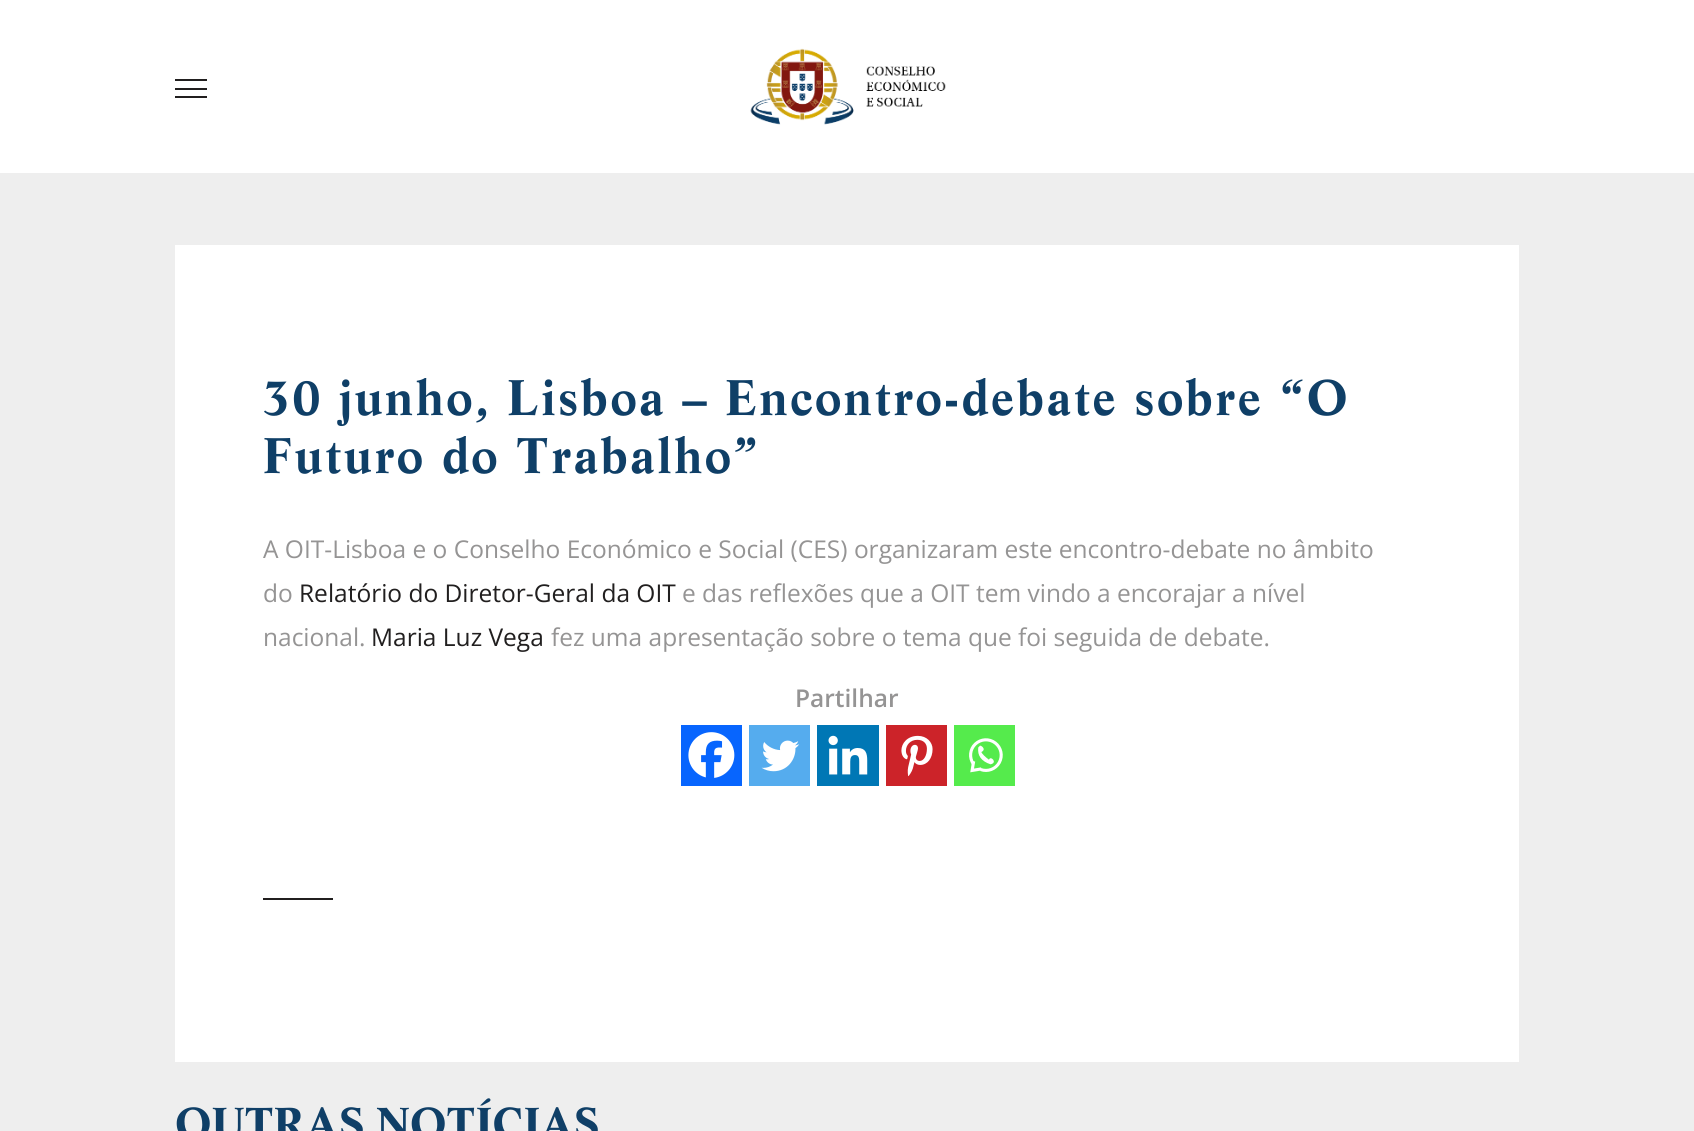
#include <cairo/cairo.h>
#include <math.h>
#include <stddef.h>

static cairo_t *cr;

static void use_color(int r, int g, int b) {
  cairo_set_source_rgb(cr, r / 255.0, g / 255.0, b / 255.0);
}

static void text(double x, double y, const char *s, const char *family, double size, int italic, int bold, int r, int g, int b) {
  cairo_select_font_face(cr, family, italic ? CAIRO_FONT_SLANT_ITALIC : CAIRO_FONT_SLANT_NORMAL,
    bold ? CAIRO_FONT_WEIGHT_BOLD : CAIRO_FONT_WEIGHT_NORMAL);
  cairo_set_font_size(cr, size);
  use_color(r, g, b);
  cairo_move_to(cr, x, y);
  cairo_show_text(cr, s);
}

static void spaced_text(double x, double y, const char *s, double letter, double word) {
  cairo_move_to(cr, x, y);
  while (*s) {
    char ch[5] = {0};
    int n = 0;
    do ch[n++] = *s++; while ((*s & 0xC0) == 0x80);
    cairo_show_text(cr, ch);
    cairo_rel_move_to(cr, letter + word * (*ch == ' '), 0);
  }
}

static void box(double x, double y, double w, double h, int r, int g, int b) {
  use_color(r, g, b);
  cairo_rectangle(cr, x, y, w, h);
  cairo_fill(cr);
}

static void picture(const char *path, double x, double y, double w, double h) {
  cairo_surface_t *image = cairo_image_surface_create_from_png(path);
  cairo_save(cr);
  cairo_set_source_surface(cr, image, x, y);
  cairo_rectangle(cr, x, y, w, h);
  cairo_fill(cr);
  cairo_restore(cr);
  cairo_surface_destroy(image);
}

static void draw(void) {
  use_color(238, 238, 238);
  cairo_paint(cr);
  box(0, 0, 1694, 173, 255, 255, 255);
  box(175, 79, 32, 2, 33, 31, 31);
  box(175, 88, 32, 2, 33, 31, 31);
  box(175, 96, 32, 2, 33, 31, 31);
  picture("img_01.png", 750, 48, 196, 77);
  box(175, 245, 1344, 817, 255, 255, 255);
  box(681, 725, 61, 61, 7, 101, 254);
  picture("img_02.png", 688, 732, 47, 46);
  box(749, 725, 61, 61, 85, 172, 238);
  picture("img_03.png", 761, 740, 39, 32);
  box(817, 725, 62, 61, 0, 119, 181);
  picture("img_04.png", 828, 735, 40, 40);
  box(886, 725, 61, 61, 204, 35, 41);
  picture("img_05.png", 901, 735, 32, 42);
  box(954, 725, 61, 61, 85, 235, 76);
  picture("img_06.png", 969, 738, 34, 35);
  box(263, 898, 70, 2, 33, 31, 31);
  cairo_select_font_face(cr, "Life", CAIRO_FONT_SLANT_NORMAL, CAIRO_FONT_WEIGHT_BOLD);
  cairo_set_font_size(cr, 49);
  use_color(15, 63, 103);
  spaced_text(263, 415, "30 junho, Lisboa – Encontro-debate sobre “O", 2.45, 0);
  spaced_text(263, 473, "Futuro do Trabalho”", 2.45, 0);
  text(263, 558, "A OIT-Lisboa e o Conselho Económico e Social (CES) organizaram este encontro-debate no âmbito", "Open Sans", 24.5, 0, 0, 149, 148, 148);
  text(263, 602, "do", "Open Sans", 24.5, 0, 0, 149, 148, 148);
  text(299, 602, "Relatório do Diretor-Geral da OIT", "Open Sans", 24.5, 0, 0, 33, 31, 31);
  text(682, 602, "e das reflexões que a OIT tem vindo a encorajar a nível", "Open Sans", 24.5, 0, 0, 149, 148, 148);
  text(263, 646, "nacional.", "Open Sans", 24.5, 0, 0, 149, 148, 148);
  text(371, 646, "Maria Luz Vega", "Open Sans", 24.5, 0, 0, 33, 31, 31);
  text(551, 646, "fez uma apresentação sobre o tema que foi seguida de debate.", "Open Sans", 24.5, 0, 0, 149, 148, 148);
  text(795, 707, "Partilhar", "Open Sans SemiBold", 24.5, 0, 0, 149, 148, 148);
  text(175, 1139, "OUTRAS NOTÍCIAS", "Life", 43.75, 0, 1, 15, 63, 103);
}

int main(void) {
  cairo_surface_t *surface = cairo_image_surface_create(CAIRO_FORMAT_RGB24, 1694, 1131);
  cr = cairo_create(surface);
  cairo_font_options_t *options = cairo_font_options_create();
  cairo_font_options_set_hint_metrics(options, CAIRO_HINT_METRICS_OFF);
  cairo_font_options_set_hint_style(options, CAIRO_HINT_STYLE_NONE);
  cairo_set_font_options(cr, options);
  cairo_set_miter_limit(cr, 4);
  draw();
  cairo_surface_write_to_png(surface, "out.png");
  cairo_font_options_destroy(options);
  cairo_destroy(cr);
  cairo_surface_destroy(surface);
  return 0;
}
